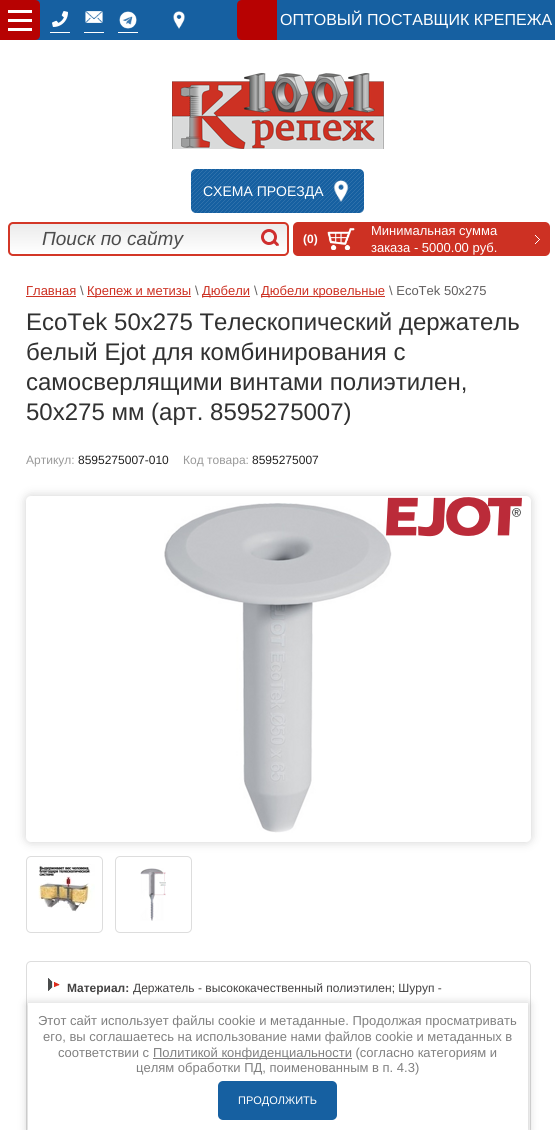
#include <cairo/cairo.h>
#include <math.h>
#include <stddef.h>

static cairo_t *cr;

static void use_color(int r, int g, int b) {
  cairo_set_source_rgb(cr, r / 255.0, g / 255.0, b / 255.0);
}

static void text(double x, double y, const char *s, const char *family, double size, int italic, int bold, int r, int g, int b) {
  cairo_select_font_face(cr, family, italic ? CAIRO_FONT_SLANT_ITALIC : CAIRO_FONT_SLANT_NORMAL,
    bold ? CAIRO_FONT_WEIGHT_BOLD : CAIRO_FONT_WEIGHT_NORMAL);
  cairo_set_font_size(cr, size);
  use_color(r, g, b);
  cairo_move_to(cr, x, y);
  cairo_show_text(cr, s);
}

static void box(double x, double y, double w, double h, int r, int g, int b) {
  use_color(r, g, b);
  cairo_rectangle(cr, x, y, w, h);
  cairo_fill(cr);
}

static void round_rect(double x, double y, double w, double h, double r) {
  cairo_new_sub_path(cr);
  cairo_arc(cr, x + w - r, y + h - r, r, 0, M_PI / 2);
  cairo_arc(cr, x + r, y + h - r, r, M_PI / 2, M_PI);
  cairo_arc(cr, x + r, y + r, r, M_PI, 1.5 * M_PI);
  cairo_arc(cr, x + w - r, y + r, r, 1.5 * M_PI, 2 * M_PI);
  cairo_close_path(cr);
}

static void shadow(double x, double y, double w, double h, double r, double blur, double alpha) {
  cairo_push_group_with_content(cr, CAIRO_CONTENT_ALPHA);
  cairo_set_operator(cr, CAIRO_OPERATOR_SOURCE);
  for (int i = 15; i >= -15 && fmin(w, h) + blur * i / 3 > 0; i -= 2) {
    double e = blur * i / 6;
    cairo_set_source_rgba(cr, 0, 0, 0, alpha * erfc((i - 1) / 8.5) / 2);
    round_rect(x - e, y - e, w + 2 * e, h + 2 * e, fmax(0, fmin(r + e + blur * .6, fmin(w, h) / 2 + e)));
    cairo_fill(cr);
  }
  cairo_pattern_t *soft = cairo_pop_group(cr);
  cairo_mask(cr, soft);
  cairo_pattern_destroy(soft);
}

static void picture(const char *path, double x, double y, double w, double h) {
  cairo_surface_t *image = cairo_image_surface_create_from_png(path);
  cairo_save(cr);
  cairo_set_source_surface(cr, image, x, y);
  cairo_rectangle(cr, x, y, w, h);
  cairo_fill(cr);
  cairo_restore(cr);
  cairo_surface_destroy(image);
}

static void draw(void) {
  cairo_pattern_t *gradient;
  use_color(255, 255, 255);
  cairo_paint(cr);
  box(35, 0, 520, 40, 22, 96, 161);
  use_color(183, 2, 2);
  cairo_new_path(cr);
  cairo_move_to(cr, 0, 0);
  cairo_line_to(cr, 35, 0);
  cairo_curve_to(cr, 38, 0, 40, 2, 40, 5);
  cairo_line_to(cr, 40, 35);
  cairo_curve_to(cr, 40, 38, 38, 40, 35, 40);
  cairo_line_to(cr, 0, 40);
  cairo_close_path(cr);
  cairo_fill(cr);
  box(8, 10, 24, 3, 255, 255, 255);
  box(8, 28, 24, 3, 255, 255, 255);
  box(8, 19, 24, 3, 255, 255, 255);
  box(50, 32, 20, 1, 255, 255, 255);
  picture("img_01.png", 52, 11, 16, 16);
  box(84, 32, 20, 1, 255, 255, 255);
  picture("img_02.png", 85, 11, 18, 12);
  box(118, 32, 20, 1, 255, 255, 255);
  picture("img_03.png", 119, 11, 18, 18);
  picture("img_04.png", 173, 11, 12, 18);
  use_color(183, 2, 2);
  cairo_new_path(cr);
  cairo_move_to(cr, 242, 0);
  cairo_line_to(cr, 277, 0);
  cairo_line_to(cr, 277, 40);
  cairo_line_to(cr, 242, 40);
  cairo_curve_to(cr, 239, 40, 237, 38, 237, 35);
  cairo_line_to(cr, 237, 5);
  cairo_curve_to(cr, 237, 2, 239, 0, 242, 0);
  cairo_close_path(cr);
  cairo_fill(cr);
  picture("img_05.png", 172, 73, 212, 76);
  use_color(22, 96, 161);
  round_rect(191, 169, 173, 44, 5);
  cairo_fill(cr);
  picture("img_06.png", 191, 169, 173, 44);
  picture("img_07.png", 333, 180, 16, 22);
  cairo_save(cr);
  round_rect(8, 222, 281, 34, 5);
  cairo_clip(cr);
  gradient = cairo_pattern_create_linear(149, 224, 149, 254);
  cairo_pattern_add_color_stop_rgba(gradient, 0, 0.922, 0.922, 0.922, 1);
  cairo_pattern_add_color_stop_rgba(gradient, 1, 1, 1, 1, 1);
  cairo_set_source(cr, gradient);
  cairo_pattern_destroy(gradient);
  cairo_rectangle(cr, 8, 224, 281, 30);
  cairo_fill(cr);
  cairo_restore(cr);
  round_rect(9, 223, 279, 32, 4);
  use_color(211, 55, 39);
  cairo_stroke(cr);
  picture("img_08.png", 261, 229, 18, 17);
  use_color(205, 49, 35);
  round_rect(293, 222, 257, 34, 5);
  cairo_fill(cr);
  picture("img_09.png", 535, 235, 5, 9);
  picture("img_10.png", 327, 228, 28, 22);
  box(26, 296, 50, 1, 205, 49, 35);
  box(87, 296, 104, 1, 205, 49, 35);
  box(202, 296, 48, 1, 205, 49, 35);
  box(261, 296, 124, 1, 205, 49, 35);
  use_color(0, 0, 0);
  shadow(26, 496, 505, 346, 5, 5, 0.19);
  use_color(255, 255, 255);
  round_rect(26, 496, 505, 346, 5);
  cairo_fill(cr);
  picture("img_11.png", 164, 503, 228, 330);
  picture("img_12.png", 386, 497, 136, 40);
  round_rect(26.5, 856.5, 76, 76, 4.5);
  use_color(221, 221, 221);
  cairo_set_line_width(cr, 1);
  cairo_stroke(cr);
  picture("img_13.png", 38, 864, 57, 48);
  round_rect(115.5, 856.5, 76, 76, 4.5);
  cairo_stroke(cr);
  picture("img_14.png", 140, 868, 26, 53);
  round_rect(26.5, 961.5, 504, 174, 4.5);
  cairo_stroke(cr);
  picture("img_15.png", 48, 978, 12, 13);
  use_color(0, 0, 0);
  shadow(28, 1004, 500, 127, 0, 5, 0.23);
  box(28, 1003, 500, 127, 255, 255, 255);
  box(153, 1058, 199, 1, 128, 128, 128);
  use_color(22, 96, 161);
  round_rect(218, 1081, 119, 39, 5);
  cairo_fill(cr);
  text(280, 25, "ОПТОВЫЙ ПОСТАВЩИК КРЕПЕЖА", "Liberation Sans", 16, 0, 0, 255, 255, 255);
  text(203, 196, "СХЕМА ПРОЕЗДА", "Liberation Sans", 14, 0, 0, 255, 255, 255);
  text(42, 245, "Поиск по сайту", "Liberation Sans", 19, 1, 0, 76, 76, 76);
  text(303, 243, "(0)", "Liberation Sans", 12, 0, 1, 255, 255, 255);
  text(371, 235, "Минимальная сумма", "Liberation Sans", 13, 0, 0, 255, 255, 255);
  text(371, 252, "заказа - 5000.00 руб.", "Liberation Sans", 13, 0, 0, 255, 255, 255);
  text(26, 295, "Главная", "Liberation Sans", 13, 0, 0, 205, 49, 35);
  text(80, 295, "\\", "Liberation Sans", 13, 0, 0, 97, 95, 95);
  text(87, 295, "Крепеж и метизы", "Liberation Sans", 13, 0, 0, 205, 49, 35);
  text(195, 295, "\\", "Liberation Sans", 13, 0, 0, 97, 95, 95);
  text(202, 295, "Дюбели", "Liberation Sans", 13, 0, 0, 205, 49, 35);
  text(254, 295, "\\", "Liberation Sans", 13, 0, 0, 97, 95, 95);
  text(261, 295, "Дюбели кровельные", "Liberation Sans", 13, 0, 0, 205, 49, 35);
  text(389, 295, "\\ EcoTek 50x275", "Liberation Sans", 13, 0, 0, 97, 95, 95);
  text(26, 330, "EcoTek 50x275 Телескопический держатель", "Liberation Sans", 24, 0, 0, 49, 49, 49);
  text(26, 360, "белый Ejot для комбинирования с", "Liberation Sans", 24, 0, 0, 49, 49, 49);
  text(26, 390, "самосверлящими винтами полиэтилен,", "Liberation Sans", 24, 0, 0, 49, 49, 49);
  text(26, 420, "50x275 мм (арт. 8595275007)", "Liberation Sans", 24, 0, 0, 49, 49, 49);
  text(26, 464, "Артикул:", "Liberation Sans", 12, 0, 0, 153, 153, 153);
  text(78, 464, "8595275007-010", "Liberation Sans", 12, 0, 0, 33, 33, 33);
  text(183, 464, "Код товара:", "Liberation Sans", 12, 0, 0, 153, 153, 153);
  text(252, 464, "8595275007", "Liberation Sans", 12, 0, 0, 33, 33, 33);
  text(67, 992, "Материал:", "Liberation Sans", 12, 0, 1, 67, 66, 66);
  text(133, 992, "Держатель - высококачественный полиэтилен; Шуруп -", "Liberation Sans", 12, 0, 0, 67, 66, 66);
  text(38, 1025, "Этот сайт использует файлы cookie и метаданные. Продолжая просматривать", "Liberation Sans", 13, 0, 0, 128, 128, 128);
  text(43, 1041, "его, вы соглашаетесь на использование нами файлов cookie и метаданных в", "Liberation Sans", 13, 0, 0, 128, 128, 128);
  text(58, 1057, "соответствии с", "Liberation Sans", 13, 0, 0, 128, 128, 128);
  text(153, 1057, "Политикой конфиденциальности (согласно категориям и", "Liberation Sans", 13, 0, 0, 128, 128, 128);
  text(136, 1072, "целям обработки ПД, поименованным в п. 4.3)", "Liberation Sans", 13, 0, 0, 128, 128, 128);
  text(238, 1104, "ПРОДОЛЖИТЬ", "Liberation Sans", 11, 0, 0, 255, 255, 255);
}

int main(void) {
  cairo_surface_t *surface = cairo_image_surface_create(CAIRO_FORMAT_RGB24, 555, 1130);
  cr = cairo_create(surface);
  cairo_font_options_t *options = cairo_font_options_create();
  cairo_font_options_set_hint_metrics(options, CAIRO_HINT_METRICS_OFF);
  cairo_font_options_set_hint_style(options, CAIRO_HINT_STYLE_NONE);
  cairo_set_font_options(cr, options);
  cairo_set_miter_limit(cr, 4);
  draw();
  cairo_surface_write_to_png(surface, "out.png");
  cairo_font_options_destroy(options);
  cairo_destroy(cr);
  cairo_surface_destroy(surface);
  return 0;
}
